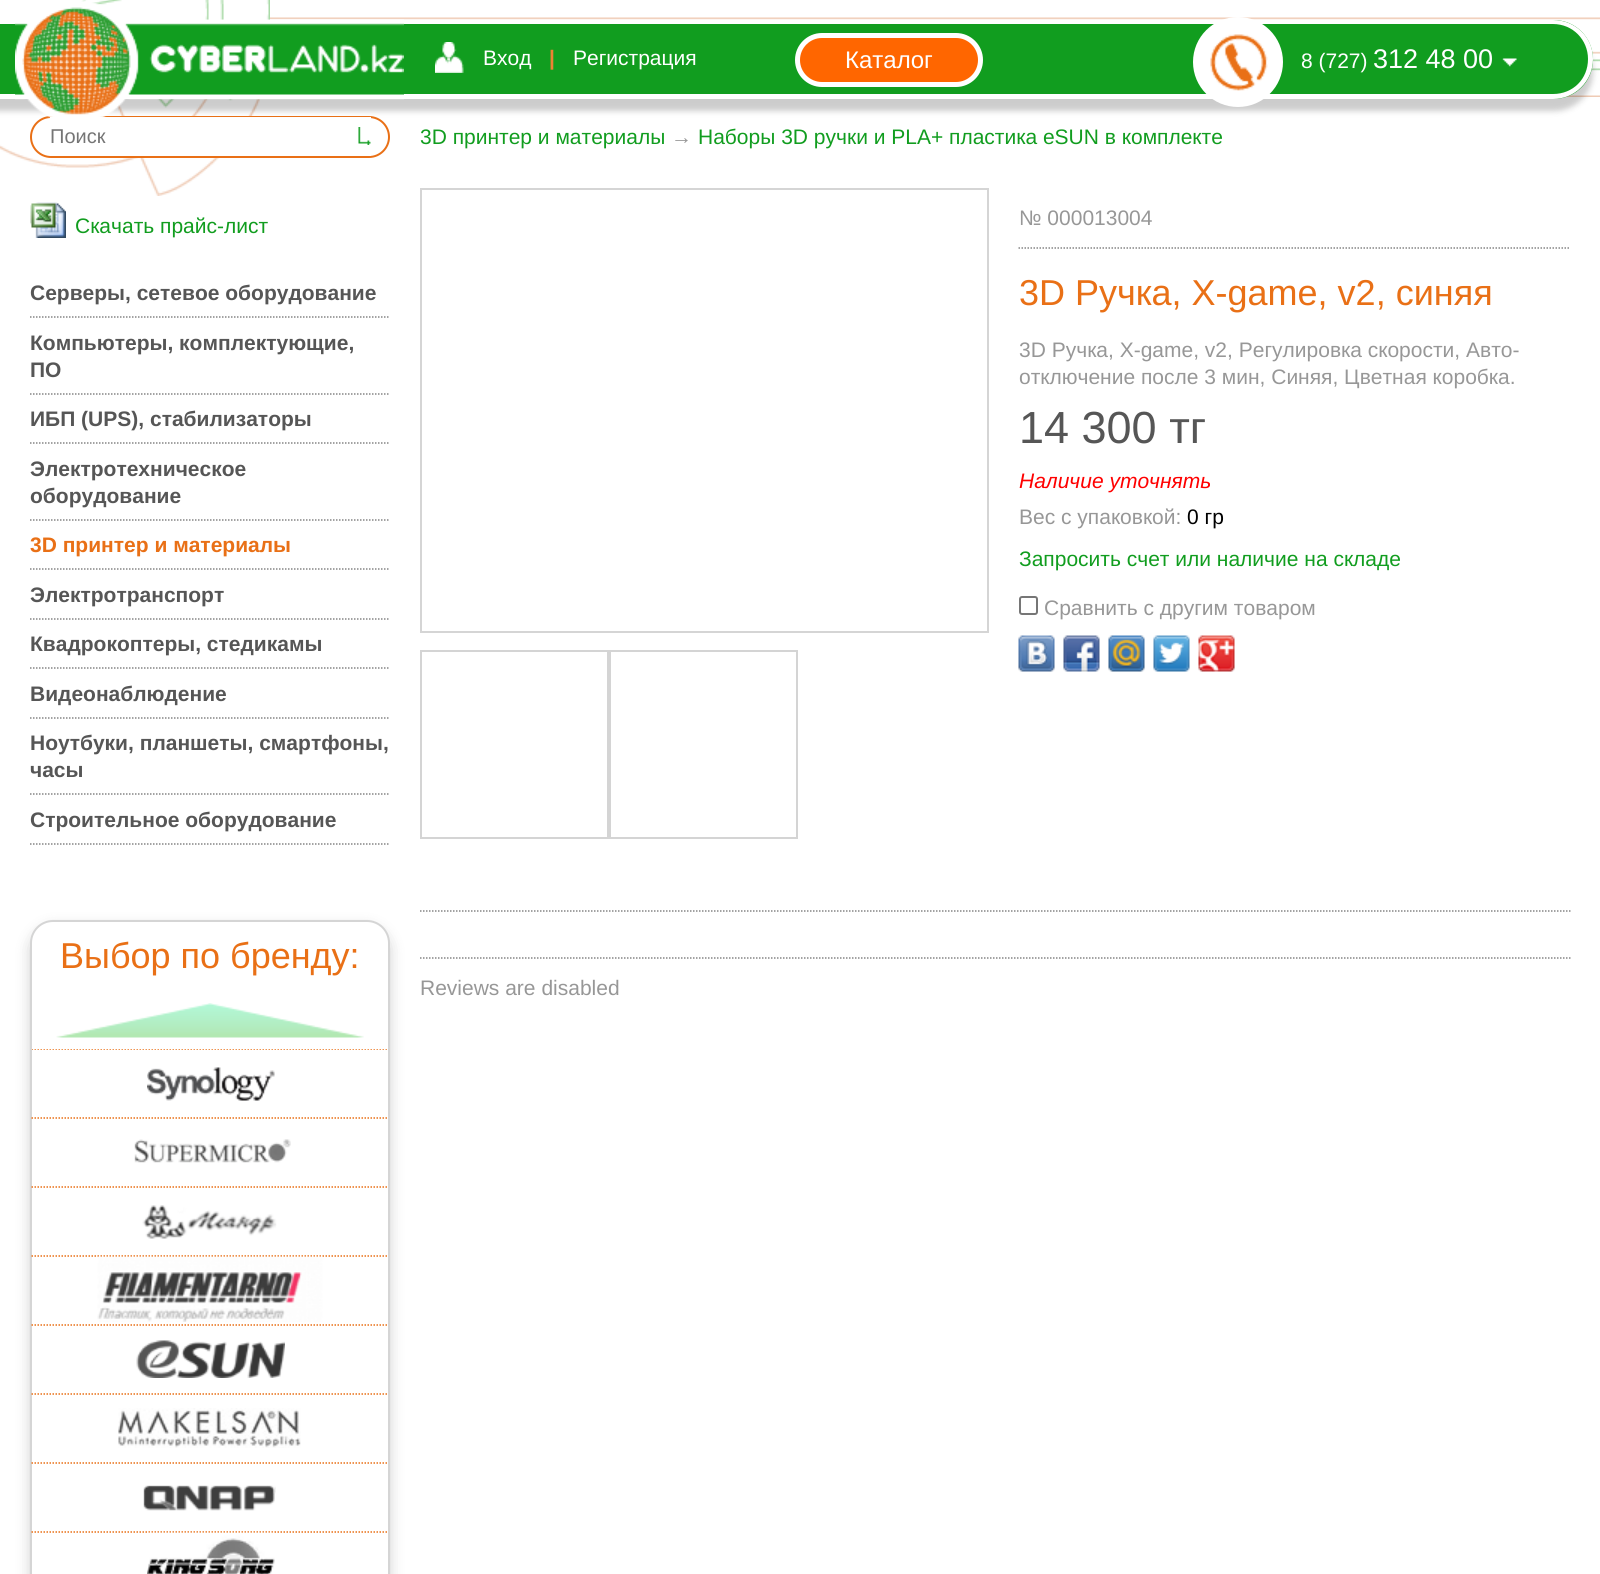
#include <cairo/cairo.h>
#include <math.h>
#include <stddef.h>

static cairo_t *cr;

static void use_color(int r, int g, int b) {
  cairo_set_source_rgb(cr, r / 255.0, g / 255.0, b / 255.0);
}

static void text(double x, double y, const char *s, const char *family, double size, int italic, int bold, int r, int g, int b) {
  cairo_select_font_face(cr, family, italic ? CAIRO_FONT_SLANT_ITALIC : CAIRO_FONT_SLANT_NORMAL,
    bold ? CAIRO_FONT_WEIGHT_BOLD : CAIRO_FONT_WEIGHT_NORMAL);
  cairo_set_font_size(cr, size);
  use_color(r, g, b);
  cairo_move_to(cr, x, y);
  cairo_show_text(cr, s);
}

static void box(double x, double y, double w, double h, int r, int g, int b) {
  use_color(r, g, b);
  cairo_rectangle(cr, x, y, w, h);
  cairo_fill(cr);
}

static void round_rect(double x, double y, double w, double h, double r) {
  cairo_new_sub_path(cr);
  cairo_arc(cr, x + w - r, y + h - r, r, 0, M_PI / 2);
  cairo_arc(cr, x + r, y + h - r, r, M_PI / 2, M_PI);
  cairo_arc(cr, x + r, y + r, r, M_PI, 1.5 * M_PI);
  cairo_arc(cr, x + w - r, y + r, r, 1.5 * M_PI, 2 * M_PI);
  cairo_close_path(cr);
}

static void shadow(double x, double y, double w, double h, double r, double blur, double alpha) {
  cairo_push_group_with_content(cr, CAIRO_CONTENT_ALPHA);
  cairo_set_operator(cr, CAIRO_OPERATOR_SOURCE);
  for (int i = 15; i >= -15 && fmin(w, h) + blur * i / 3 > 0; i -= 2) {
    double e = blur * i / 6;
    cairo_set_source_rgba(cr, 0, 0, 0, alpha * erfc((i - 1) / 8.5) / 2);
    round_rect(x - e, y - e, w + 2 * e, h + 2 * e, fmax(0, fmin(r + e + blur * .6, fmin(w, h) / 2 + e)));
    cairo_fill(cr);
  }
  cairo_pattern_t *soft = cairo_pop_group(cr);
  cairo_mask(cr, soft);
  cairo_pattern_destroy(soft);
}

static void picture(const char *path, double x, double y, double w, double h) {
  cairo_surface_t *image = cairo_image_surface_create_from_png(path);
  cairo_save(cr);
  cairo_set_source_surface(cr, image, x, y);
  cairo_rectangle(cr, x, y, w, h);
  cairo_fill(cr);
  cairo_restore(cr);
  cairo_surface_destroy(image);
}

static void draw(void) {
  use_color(255, 255, 255);
  cairo_paint(cr);
  picture("img_01.png", 0, 0, 1600, 196);
  use_color(255, 255, 255);
  round_rect(31, 117, 358, 40, 20);
  cairo_fill_preserve(cr);
  use_color(233, 112, 22);
  cairo_stroke(cr);
  box(50, 117, 321, 39, 255, 255, 255);
  use_color(0, 0, 0);
  shadow(-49, 32, 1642, 79, 39.5, 3, 0.2);
  use_color(17, 157, 31);
  cairo_new_path(cr);
  cairo_move_to(cr, -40, 20);
  cairo_line_to(cr, 1553.5, 20);
  cairo_curve_to(cr, 1575.5, 20, 1593, 37.5, 1593, 59.5);
  cairo_curve_to(cr, 1593, 81.5, 1575.5, 99, 1553.5, 99);
  cairo_line_to(cr, -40, 99);
  cairo_close_path(cr);
  cairo_fill(cr);
  use_color(255, 255, 255);
  cairo_set_fill_rule(cr, CAIRO_FILL_RULE_EVEN_ODD);
  cairo_new_path(cr);
  cairo_move_to(cr, -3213, 20);
  cairo_line_to(cr, 1553, 20);
  cairo_curve_to(cr, 1575, 20, 1593, 37, 1593, 59);
  cairo_curve_to(cr, 1593, 81, 1575, 99, 1553, 99);
  cairo_line_to(cr, -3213, 99);
  cairo_close_path(cr);
  cairo_move_to(cr, -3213, 24);
  cairo_line_to(cr, 1553, 24);
  cairo_curve_to(cr, 1573, 24, 1588, 40, 1588, 59);
  cairo_curve_to(cr, 1588, 79, 1573, 94, 1553, 94);
  cairo_line_to(cr, -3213, 94);
  cairo_close_path(cr);
  cairo_fill(cr);
  picture("img_02.png", 15, 0, 389, 118);
  picture("img_03.png", 435, 42, 29, 31);
  use_color(255, 102, 0);
  round_rect(797.5, 35.5, 183, 49, 24.5);
  cairo_fill_preserve(cr);
  use_color(255, 255, 255);
  cairo_set_line_width(cr, 5);
  cairo_stroke(cr);
  picture("img_04.png", 1502, 58, 15, 9);
  cairo_arc(cr, 1238, 62, 45, 0, 2 * M_PI);
  cairo_fill(cr);
  picture("img_05.png", 1210, 34, 58, 57);
  picture("img_06.png", 358, 127, 13, 18);
  picture("img_07.png", 30, 202, 36, 36);
  cairo_new_path(cr);
  cairo_move_to(cr, 30, 317);
  cairo_line_to(cr, 390, 317);
  use_color(133, 133, 133);
  cairo_set_line_width(cr, 1.5);
  cairo_set_dash(cr, (double[]){1.5, 1.5}, 2, 0);
  cairo_stroke(cr);
  cairo_new_path(cr);
  cairo_move_to(cr, 30, 394);
  cairo_line_to(cr, 390, 394);
  cairo_stroke(cr);
  cairo_new_path(cr);
  cairo_move_to(cr, 30, 443);
  cairo_line_to(cr, 390, 443);
  cairo_stroke(cr);
  cairo_new_path(cr);
  cairo_move_to(cr, 30, 520);
  cairo_line_to(cr, 390, 520);
  cairo_stroke(cr);
  cairo_new_path(cr);
  cairo_move_to(cr, 30, 569);
  cairo_line_to(cr, 390, 569);
  cairo_stroke(cr);
  cairo_new_path(cr);
  cairo_move_to(cr, 30, 619);
  cairo_line_to(cr, 390, 619);
  cairo_stroke(cr);
  cairo_new_path(cr);
  cairo_move_to(cr, 30, 668);
  cairo_line_to(cr, 390, 668);
  cairo_stroke(cr);
  cairo_new_path(cr);
  cairo_move_to(cr, 30, 718);
  cairo_line_to(cr, 390, 718);
  cairo_stroke(cr);
  cairo_new_path(cr);
  cairo_move_to(cr, 30, 794);
  cairo_line_to(cr, 390, 794);
  cairo_stroke(cr);
  cairo_new_path(cr);
  cairo_move_to(cr, 30, 844);
  cairo_line_to(cr, 390, 844);
  cairo_stroke(cr);
  use_color(14, 15, 14);
  shadow(30, 927, 360, 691, 23, 7, 0.2);
  use_color(255, 255, 255);
  round_rect(31, 921, 358, 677, 22);
  cairo_fill_preserve(cr);
  use_color(213, 213, 213);
  cairo_set_line_width(cr, 2);
  cairo_set_dash(cr, NULL, 0, 0);
  cairo_stroke(cr);
  picture("img_08.png", 56, 1003, 308, 35);
  cairo_save(cr);
  cairo_set_fill_rule(cr, CAIRO_FILL_RULE_WINDING);
  cairo_rectangle(cr, 32, 1049, 357, 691);
  cairo_clip(cr);
  cairo_new_path(cr);
  cairo_move_to(cr, 31.5, 1049);
  cairo_line_to(cr, 388.5, 1049);
  use_color(233, 112, 22);
  cairo_set_line_width(cr, 1.5);
  cairo_set_dash(cr, (double[]){1.5, 1.5}, 2, 0);
  cairo_stroke(cr);
  cairo_restore(cr);
  picture("img_09.png", 147, 1067, 128, 34);
  cairo_new_path(cr);
  cairo_move_to(cr, 31.5, 1118);
  cairo_line_to(cr, 388.5, 1118);
  use_color(233, 112, 22);
  cairo_set_line_width(cr, 1.5);
  cairo_set_dash(cr, (double[]){1.5, 1.5}, 2, 0);
  cairo_stroke(cr);
  picture("img_10.png", 134, 1139, 157, 24);
  cairo_new_path(cr);
  cairo_move_to(cr, 31.5, 1187);
  cairo_line_to(cr, 388.5, 1187);
  cairo_stroke(cr);
  picture("img_11.png", 142, 1205, 135, 34);
  cairo_new_path(cr);
  cairo_move_to(cr, 31.5, 1256);
  cairo_line_to(cr, 388.5, 1256);
  cairo_stroke(cr);
  picture("img_12.png", 97, 1256, 226, 66);
  cairo_new_path(cr);
  cairo_move_to(cr, 31.5, 1325);
  cairo_line_to(cr, 388.5, 1325);
  cairo_stroke(cr);
  picture("img_13.png", 136, 1340, 149, 38);
  cairo_new_path(cr);
  cairo_move_to(cr, 31.5, 1394);
  cairo_line_to(cr, 388.5, 1394);
  cairo_stroke(cr);
  picture("img_14.png", 118, 1408, 183, 40);
  cairo_new_path(cr);
  cairo_move_to(cr, 31.5, 1463);
  cairo_line_to(cr, 388.5, 1463);
  cairo_stroke(cr);
  picture("img_15.png", 143, 1485, 133, 26);
  cairo_new_path(cr);
  cairo_move_to(cr, 31.5, 1532);
  cairo_line_to(cr, 388.5, 1532);
  cairo_stroke(cr);
  picture("img_16.png", 147, 1532, 128, 42);
  cairo_rectangle(cr, 421, 189, 567, 443);
  use_color(213, 213, 213);
  cairo_set_line_width(cr, 2);
  cairo_set_dash(cr, NULL, 0, 0);
  cairo_stroke(cr);
  cairo_rectangle(cr, 421, 651, 187, 187);
  use_color(212, 212, 212);
  cairo_stroke(cr);
  cairo_rectangle(cr, 610, 651, 187, 187);
  cairo_stroke(cr);
  cairo_new_path(cr);
  cairo_move_to(cr, 1018.5, 248);
  cairo_line_to(cr, 1570.5, 248);
  use_color(133, 133, 133);
  cairo_set_line_width(cr, 1.5);
  cairo_set_dash(cr, (double[]){1.5, 1.5}, 2, 0);
  cairo_stroke(cr);
  round_rect(1020, 597, 17, 17, 2);
  use_color(118, 118, 118);
  cairo_set_line_width(cr, 2);
  cairo_set_dash(cr, NULL, 0, 0);
  cairo_stroke(cr);
  picture("img_17.png", 1018, 635, 37, 37);
  picture("img_18.png", 1063, 635, 37, 37);
  picture("img_19.png", 1108, 635, 37, 37);
  picture("img_20.png", 1153, 635, 37, 37);
  picture("img_21.png", 1198, 635, 37, 37);
  cairo_new_path(cr);
  cairo_move_to(cr, 420, 958);
  cairo_line_to(cr, 1570.5, 958);
  use_color(133, 133, 133);
  cairo_set_line_width(cr, 1.5);
  cairo_set_dash(cr, (double[]){1.5, 1.5}, 2, 0);
  cairo_stroke(cr);
  cairo_new_path(cr);
  cairo_move_to(cr, 420, 911);
  cairo_line_to(cr, 1570.5, 911);
  cairo_stroke(cr);
  text(483, 65, "Вход", "Liberation Sans", 21, 0, 0, 255, 255, 255);
  text(549, 65, "|", "Liberation Sans", 21, 0, 1, 236, 130, 51);
  text(573, 65, "Регистрация", "Liberation Sans", 21, 0, 0, 255, 255, 255);
  text(845, 68, "Каталог", "Liberation Sans", 24, 0, 0, 255, 255, 255);
  text(1301, 68, "8 (727)", "Liberation Sans", 21, 0, 0, 255, 255, 255);
  text(1373, 68, "312 48 00", "Liberation Sans", 27, 0, 0, 255, 255, 255);
  text(50, 143, "Поиск", "Liberation Sans", 20, 0, 0, 117, 117, 117);
  text(75, 233, "Скачать прайс-лист", "Liberation Sans", 21, 0, 0, 17, 157, 31);
  text(30, 300, "Серверы, сетевое оборудование", "Liberation Sans", 21, 0, 1, 86, 86, 86);
  text(30, 350, "Компьютеры, комплектующие,", "Liberation Sans", 21, 0, 1, 86, 86, 86);
  text(30, 377, "ПО", "Liberation Sans", 21, 0, 1, 86, 86, 86);
  text(30, 426, "ИБП (UPS), стабилизаторы", "Liberation Sans", 21, 0, 1, 86, 86, 86);
  text(30, 476, "Электротехническое", "Liberation Sans", 21, 0, 1, 86, 86, 86);
  text(30, 503, "оборудование", "Liberation Sans", 21, 0, 1, 86, 86, 86);
  text(30, 552, "3D принтер и материалы", "Liberation Sans", 21, 0, 1, 233, 112, 22);
  text(30, 602, "Электротранспорт", "Liberation Sans", 21, 0, 1, 86, 86, 86);
  text(30, 651, "Квадрокоптеры, стедикамы", "Liberation Sans", 21, 0, 1, 86, 86, 86);
  text(30, 701, "Видеонаблюдение", "Liberation Sans", 21, 0, 1, 86, 86, 86);
  text(30, 750, "Ноутбуки, планшеты, смартфоны,", "Liberation Sans", 21, 0, 1, 86, 86, 86);
  text(30, 777, "часы", "Liberation Sans", 21, 0, 1, 86, 86, 86);
  text(30, 827, "Строительное оборудование", "Liberation Sans", 21, 0, 1, 86, 86, 86);
  text(60, 968, "Выбор по бренду:", "Liberation Sans", 36, 0, 0, 233, 112, 22);
  text(420, 144, "3D принтер и материалы", "Liberation Sans", 21, 0, 0, 17, 157, 31);
  text(671, 144, "→", "Liberation Sans", 21, 0, 0, 151, 151, 151);
  text(698, 144, "Наборы 3D ручки и PLA+ пластика eSUN в комплекте", "Liberation Sans", 21, 0, 0, 17, 157, 31);
  text(1019, 225, "№ 000013004", "Liberation Sans", 21, 0, 0, 151, 151, 151);
  text(1019, 305, "3D Ручка, X-game, v2, синяя", "Liberation Sans", 36, 0, 0, 233, 112, 22);
  text(1019, 357, "3D Ручка, X-game, v2, Регулировка скорости, Авто-", "Liberation Sans", 21, 0, 0, 151, 151, 151);
  text(1019, 384, "отключение после 3 мин, Синяя, Цветная коробка.", "Liberation Sans", 21, 0, 0, 151, 151, 151);
  text(1019, 443, "14 300 тг", "Liberation Sans", 45, 0, 0, 86, 86, 86);
  text(1019, 488, "Наличие уточнять", "Liberation Sans", 21, 1, 0, 255, 0, 0);
  text(1019, 524, "Вес с упаковкой:", "Liberation Sans", 21, 0, 0, 151, 151, 151);
  text(1187, 524, "0 гр", "Liberation Sans", 21, 0, 0, 0, 0, 0);
  text(1019, 566, "Запросить счет или наличие на складе", "Liberation Sans", 21, 0, 0, 17, 157, 31);
  text(1044, 615, "Сравнить с другим товаром", "Liberation Sans", 21, 0, 0, 151, 151, 151);
  text(420, 995, "Reviews are disabled", "Liberation Sans", 21, 0, 0, 151, 151, 151);
}

int main(void) {
  cairo_surface_t *surface = cairo_image_surface_create(CAIRO_FORMAT_RGB24, 1600, 1574);
  cr = cairo_create(surface);
  cairo_font_options_t *options = cairo_font_options_create();
  cairo_font_options_set_hint_metrics(options, CAIRO_HINT_METRICS_OFF);
  cairo_font_options_set_hint_style(options, CAIRO_HINT_STYLE_NONE);
  cairo_set_font_options(cr, options);
  cairo_set_miter_limit(cr, 4);
  draw();
  cairo_surface_write_to_png(surface, "out.png");
  cairo_font_options_destroy(options);
  cairo_destroy(cr);
  cairo_surface_destroy(surface);
  return 0;
}
